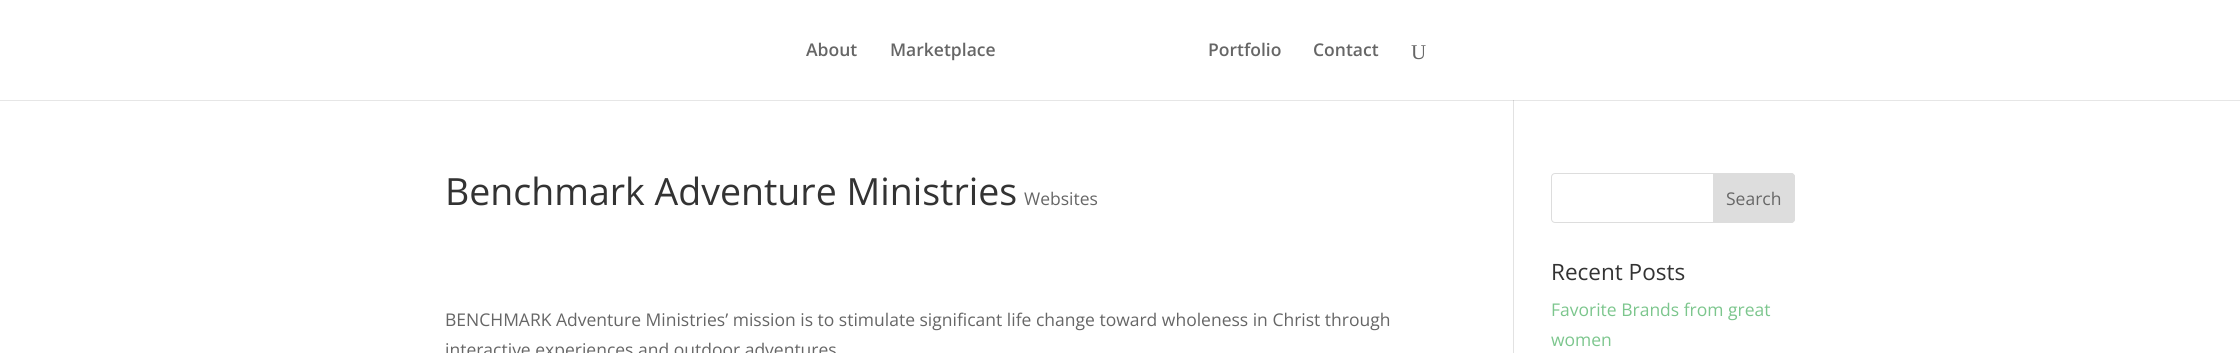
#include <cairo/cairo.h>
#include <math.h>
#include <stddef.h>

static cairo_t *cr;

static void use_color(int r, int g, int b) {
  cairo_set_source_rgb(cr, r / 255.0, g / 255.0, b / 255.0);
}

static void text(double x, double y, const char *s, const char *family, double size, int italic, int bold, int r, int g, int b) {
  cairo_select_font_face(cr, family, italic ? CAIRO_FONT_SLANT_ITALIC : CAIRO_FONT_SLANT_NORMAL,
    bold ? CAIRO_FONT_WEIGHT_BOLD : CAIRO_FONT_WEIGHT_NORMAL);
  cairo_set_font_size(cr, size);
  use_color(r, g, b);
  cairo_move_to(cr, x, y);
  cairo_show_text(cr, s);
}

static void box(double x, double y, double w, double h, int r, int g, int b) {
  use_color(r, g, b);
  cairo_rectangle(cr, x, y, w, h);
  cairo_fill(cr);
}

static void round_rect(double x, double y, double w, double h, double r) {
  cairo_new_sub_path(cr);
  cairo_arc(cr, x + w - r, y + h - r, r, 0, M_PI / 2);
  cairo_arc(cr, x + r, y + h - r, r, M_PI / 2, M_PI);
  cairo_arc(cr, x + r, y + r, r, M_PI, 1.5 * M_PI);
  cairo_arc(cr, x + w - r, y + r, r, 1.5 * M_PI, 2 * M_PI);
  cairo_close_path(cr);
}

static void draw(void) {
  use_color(255, 255, 255);
  cairo_paint(cr);
  box(0, 100, 2240, 1, 230, 230, 230);
  box(1513, 100, 1, 253, 226, 226, 226);
  box(1513, 100, 1, 1, 203, 203, 203);
  round_rect(1551.5, 173.5, 243, 49, 3.5);
  use_color(221, 221, 221);
  cairo_set_line_width(cr, 1);
  cairo_stroke(cr);
  cairo_new_path(cr);
  cairo_move_to(cr, 1713.5, 173.5);
  cairo_line_to(cr, 1791, 173.5);
  cairo_curve_to(cr, 1793, 173.5, 1794.5, 175, 1794.5, 177);
  cairo_line_to(cr, 1794.5, 219);
  cairo_curve_to(cr, 1794.5, 221, 1793, 222.5, 1791, 222.5);
  cairo_line_to(cr, 1713.5, 222.5);
  cairo_close_path(cr);
  cairo_fill_preserve(cr);
  cairo_stroke(cr);
  text(806, 56, "About", "Open Sans SemiBold", 17.5, 0, 0, 102, 102, 102);
  text(890, 56, "Marketplace", "Open Sans SemiBold", 17.5, 0, 0, 102, 102, 102);
  text(1208, 56, "Portfolio", "Open Sans SemiBold", 17.5, 0, 0, 102, 102, 102);
  text(1313, 56, "Contact", "Open Sans SemiBold", 17.5, 0, 0, 102, 102, 102);
  text(1411, 59, "U", "Liberation Serif", 21, 0, 0, 102, 102, 102);
  text(445, 205, "Benchmark Adventure Ministries", "Open Sans", 37.5, 0, 0, 51, 51, 51);
  text(1024, 205, "Websites", "Open Sans", 17.5, 0, 0, 102, 102, 102);
  text(445, 326, "BENCHMARK Adventure Ministries’ mission is to stimulate significant life change toward wholeness in Christ through", "Open Sans", 17.5, 0, 0, 102, 102, 102);
  text(445, 356, "interactive experiences and outdoor adventures", "Open Sans", 17.5, 0, 0, 102, 102, 102);
  text(1726, 205, "Search", "Open Sans", 17.5, 0, 0, 102, 102, 102);
  text(1551, 280, "Recent Posts", "Open Sans", 22.5, 0, 0, 51, 51, 51);
  text(1551, 316, "Favorite Brands from great", "Open Sans", 17.5, 0, 0, 124, 198, 141);
  text(1551, 346, "women", "Open Sans", 17.5, 0, 0, 124, 198, 141);
}

int main(void) {
  cairo_surface_t *surface = cairo_image_surface_create(CAIRO_FORMAT_RGB24, 2240, 353);
  cr = cairo_create(surface);
  cairo_font_options_t *options = cairo_font_options_create();
  cairo_font_options_set_hint_metrics(options, CAIRO_HINT_METRICS_OFF);
  cairo_font_options_set_hint_style(options, CAIRO_HINT_STYLE_NONE);
  cairo_set_font_options(cr, options);
  cairo_set_miter_limit(cr, 4);
  draw();
  cairo_surface_write_to_png(surface, "out.png");
  cairo_font_options_destroy(options);
  cairo_destroy(cr);
  cairo_surface_destroy(surface);
  return 0;
}
